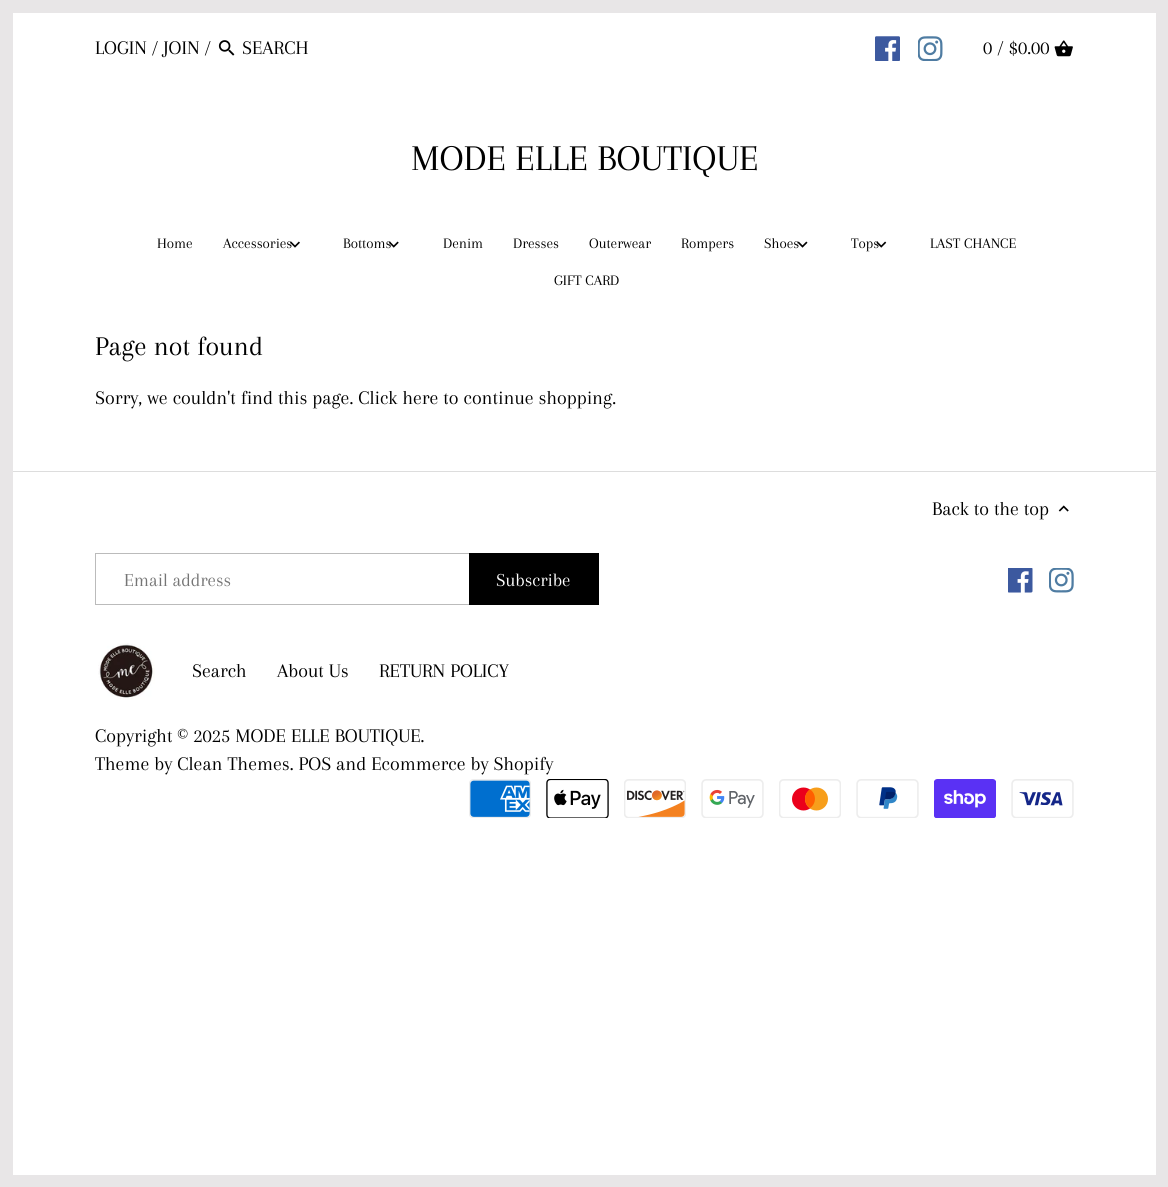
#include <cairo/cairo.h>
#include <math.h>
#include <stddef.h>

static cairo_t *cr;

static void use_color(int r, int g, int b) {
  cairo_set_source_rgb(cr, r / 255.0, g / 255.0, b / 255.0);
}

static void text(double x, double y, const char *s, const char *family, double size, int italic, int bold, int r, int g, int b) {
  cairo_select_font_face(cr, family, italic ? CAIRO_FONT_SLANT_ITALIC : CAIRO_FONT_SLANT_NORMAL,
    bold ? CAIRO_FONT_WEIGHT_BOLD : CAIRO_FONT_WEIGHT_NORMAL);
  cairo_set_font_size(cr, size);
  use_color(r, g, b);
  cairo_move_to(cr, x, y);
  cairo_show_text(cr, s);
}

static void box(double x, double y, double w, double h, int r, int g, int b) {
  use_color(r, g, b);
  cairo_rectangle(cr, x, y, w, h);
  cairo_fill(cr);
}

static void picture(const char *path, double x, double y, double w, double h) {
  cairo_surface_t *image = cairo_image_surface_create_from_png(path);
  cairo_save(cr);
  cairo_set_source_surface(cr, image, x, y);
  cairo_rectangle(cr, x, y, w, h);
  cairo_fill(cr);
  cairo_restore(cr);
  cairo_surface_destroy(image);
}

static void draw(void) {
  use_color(255, 255, 255);
  cairo_paint(cr);
  cairo_rectangle(cr, 6.5, 6.5, 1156, 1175);
  use_color(232, 230, 231);
  cairo_set_line_width(cr, 13);
  cairo_stroke(cr);
  picture("img_01.png", 218, 40, 17, 16);
  picture("img_02.png", 875, 36, 25, 25);
  picture("img_03.png", 918, 36, 25, 25);
  picture("img_04.png", 1054, 40, 19, 17);
  box(13, 471, 1143, 1, 221, 221, 221);
  picture("img_09.png", 1058, 505, 11, 7);
  cairo_rectangle(cr, 95.5, 553.5, 502, 51);
  use_color(187, 187, 187);
  cairo_set_line_width(cr, 1);
  cairo_stroke(cr);
  box(469, 553, 130, 52, 0, 0, 0);
  picture("img_10.png", 1008, 568, 25, 25);
  picture("img_11.png", 1049, 568, 25, 25);
  picture("img_12.png", 98, 643, 57, 57);
  picture("img_13.png", 469, 779, 62, 39);
  picture("img_14.png", 546, 779, 63, 39);
  picture("img_15.png", 624, 779, 62, 39);
  picture("img_16.png", 701, 779, 63, 39);
  picture("img_17.png", 779, 779, 62, 39);
  picture("img_18.png", 856, 779, 63, 39);
  picture("img_19.png", 934, 779, 62, 39);
  picture("img_20.png", 1011, 779, 63, 39);
  text(95, 54, "LOGIN / JOIN /", "Arapey", 20, 0, 0, 0, 0, 0);
  cairo_save(cr);
  cairo_rectangle(cr, 243, 36, 150, 23);
  cairo_clip(cr);
  text(242, 54, "SEARCH", "Arapey", 20, 0, 0, 0, 0, 0);
  cairo_restore(cr);
  text(983, 54, "0 / $0.00", "Arapey", 20, 0, 0, 0, 0, 0);
  text(411, 170, "MODE ELLE BOUTIQUE", "Arapey", 37.5, 0, 0, 0, 0, 0);
  text(157, 248, "Home", "Arapey", 15, 0, 0, 0, 0, 0);
  text(223, 248, "Accessories", "Arapey", 15, 0, 0, 0, 0, 0);
  picture("img_05.png", 290, 241, 10, 7);
  text(343, 248, "Bottoms", "Arapey", 15, 0, 0, 0, 0, 0);
  picture("img_06.png", 388, 241, 11, 7);
  text(443, 248, "Denim", "Arapey", 15, 0, 0, 0, 0, 0);
  text(513, 248, "Dresses", "Arapey", 15, 0, 0, 0, 0, 0);
  text(589, 248, "Outerwear", "Arapey", 15, 0, 0, 0, 0, 0);
  text(681, 248, "Rompers", "Arapey", 15, 0, 0, 0, 0, 0);
  text(764, 248, "Shoes", "Arapey", 15, 0, 0, 0, 0, 0);
  picture("img_07.png", 797, 241, 11, 7);
  text(851, 248, "Tops", "Arapey", 15, 0, 0, 0, 0, 0);
  picture("img_08.png", 876, 241, 11, 7);
  text(930, 248, "LAST CHANCE", "Arapey", 15, 0, 0, 0, 0, 0);
  text(554, 285, "GIFT CARD", "Arapey", 15, 0, 0, 0, 0, 0);
  text(95, 355, "Page not found", "Arapey", 28, 0, 0, 0, 0, 0);
  text(95, 404, "Sorry, we couldn't find this page. Click here to continue shopping.", "Arapey", 20, 0, 0, 0, 0, 0);
  text(932, 515, "Back to the top", "Arapey", 20, 0, 0, 0, 0, 0);
  text(124, 586, "Email address", "Arapey", 19, 0, 0, 117, 117, 117);
  text(496, 586, "Subscribe", "Arapey", 19, 0, 0, 255, 255, 255);
  text(192, 677, "Search", "Arapey", 20, 0, 0, 0, 0, 0);
  text(277, 677, "About Us", "Arapey", 20, 0, 0, 0, 0, 0);
  text(379, 677, "RETURN POLICY", "Arapey", 20, 0, 0, 0, 0, 0);
  text(95, 742, "Copyright © 2025 MODE ELLE BOUTIQUE.", "Arapey", 20, 0, 0, 0, 0, 0);
  text(95, 770, "Theme by Clean Themes. POS and Ecommerce by Shopify", "Arapey", 20, 0, 0, 0, 0, 0);
}

int main(void) {
  cairo_surface_t *surface = cairo_image_surface_create(CAIRO_FORMAT_RGB24, 1168, 1187);
  cr = cairo_create(surface);
  cairo_font_options_t *options = cairo_font_options_create();
  cairo_font_options_set_hint_metrics(options, CAIRO_HINT_METRICS_OFF);
  cairo_font_options_set_hint_style(options, CAIRO_HINT_STYLE_NONE);
  cairo_set_font_options(cr, options);
  cairo_set_miter_limit(cr, 4);
  draw();
  cairo_surface_write_to_png(surface, "out.png");
  cairo_font_options_destroy(options);
  cairo_destroy(cr);
  cairo_surface_destroy(surface);
  return 0;
}
